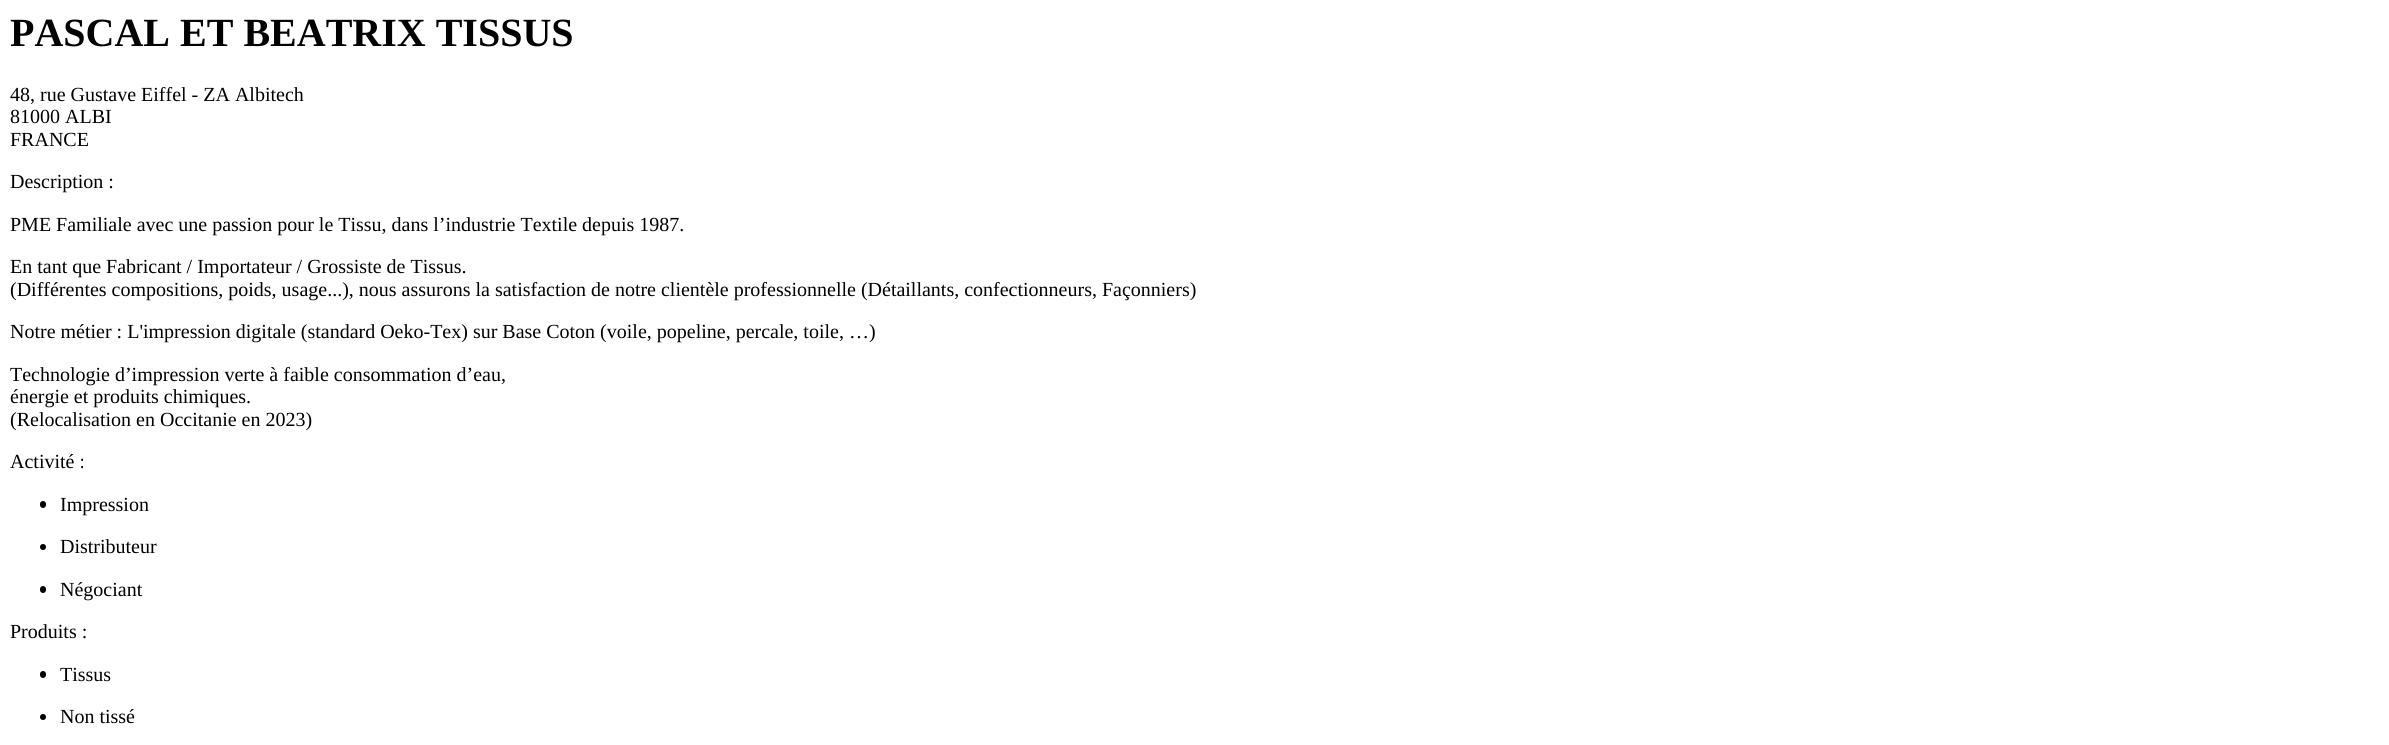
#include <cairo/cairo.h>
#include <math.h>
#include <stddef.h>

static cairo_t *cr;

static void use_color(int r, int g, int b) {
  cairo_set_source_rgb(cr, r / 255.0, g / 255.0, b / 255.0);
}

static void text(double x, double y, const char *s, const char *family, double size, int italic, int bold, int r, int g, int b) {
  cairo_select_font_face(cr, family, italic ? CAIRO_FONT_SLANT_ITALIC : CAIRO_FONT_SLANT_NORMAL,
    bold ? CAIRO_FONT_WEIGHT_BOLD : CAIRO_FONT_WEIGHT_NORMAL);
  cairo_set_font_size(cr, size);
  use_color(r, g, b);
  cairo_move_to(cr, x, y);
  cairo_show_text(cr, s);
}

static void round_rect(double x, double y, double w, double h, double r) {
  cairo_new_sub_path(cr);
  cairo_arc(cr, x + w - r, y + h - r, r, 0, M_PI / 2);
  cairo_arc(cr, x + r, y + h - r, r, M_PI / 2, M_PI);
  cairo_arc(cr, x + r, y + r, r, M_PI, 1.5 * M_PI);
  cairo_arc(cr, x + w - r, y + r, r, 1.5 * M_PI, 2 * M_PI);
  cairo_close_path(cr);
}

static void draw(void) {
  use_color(255, 255, 255);
  cairo_paint(cr);
  use_color(0, 0, 0);
  round_rect(40, 501, 6, 7, 3);
  cairo_fill(cr);
  cairo_arc(cr, 43, 547, 3, 0, 2 * M_PI);
  cairo_fill(cr);
  round_rect(40, 586, 6, 7, 3);
  cairo_fill(cr);
  round_rect(40, 671, 6, 7, 3);
  cairo_fill(cr);
  cairo_arc(cr, 43, 717, 3, 0, 2 * M_PI);
  cairo_fill(cr);
  text(10, 46, "PASCAL ET BEATRIX TISSUS", "Liberation Serif", 40, 0, 1, 0, 0, 0);
  text(10, 101, "48, rue Gustave Eiffel - ZA Albitech", "Liberation Serif", 20, 0, 0, 0, 0, 0);
  text(10, 123, "81000 ALBI", "Liberation Serif", 20, 0, 0, 0, 0, 0);
  text(10, 146, "FRANCE", "Liberation Serif", 20, 0, 0, 0, 0, 0);
  text(10, 188, "Description :", "Liberation Serif", 20, 0, 0, 0, 0, 0);
  text(10, 231, "PME Familiale avec une passion pour le Tissu, dans l’industrie Textile depuis 1987.", "Liberation Serif", 20, 0, 0, 0, 0, 0);
  text(10, 273, "En tant que Fabricant / Importateur / Grossiste de Tissus.", "Liberation Serif", 20, 0, 0, 0, 0, 0);
  text(10, 296, "(Différentes compositions, poids, usage...), nous assurons la satisfaction de notre clientèle professionnelle (Détaillants, confectionneurs, Façonniers)", "Liberation Serif", 20, 0, 0, 0, 0, 0);
  text(10, 338, "Notre métier : L'impression digitale (standard Oeko-Tex) sur Base Coton (voile, popeline, percale, toile, …)", "Liberation Serif", 20, 0, 0, 0, 0, 0);
  text(10, 381, "Technologie d’impression verte à faible consommation d’eau,", "Liberation Serif", 20, 0, 0, 0, 0, 0);
  text(10, 403, "énergie et produits chimiques.", "Liberation Serif", 20, 0, 0, 0, 0, 0);
  text(10, 426, "(Relocalisation en Occitanie en 2023)", "Liberation Serif", 20, 0, 0, 0, 0, 0);
  text(10, 468, "Activité :", "Liberation Serif", 20, 0, 0, 0, 0, 0);
  text(60, 511, "Impression", "Liberation Serif", 20, 0, 0, 0, 0, 0);
  text(60, 553, "Distributeur", "Liberation Serif", 20, 0, 0, 0, 0, 0);
  text(60, 596, "Négociant", "Liberation Serif", 20, 0, 0, 0, 0, 0);
  text(10, 638, "Produits :", "Liberation Serif", 20, 0, 0, 0, 0, 0);
  text(60, 681, "Tissus", "Liberation Serif", 20, 0, 0, 0, 0, 0);
  text(60, 723, "Non tissé", "Liberation Serif", 20, 0, 0, 0, 0, 0);
}

int main(void) {
  cairo_surface_t *surface = cairo_image_surface_create(CAIRO_FORMAT_RGB24, 2389, 745);
  cr = cairo_create(surface);
  cairo_font_options_t *options = cairo_font_options_create();
  cairo_font_options_set_hint_metrics(options, CAIRO_HINT_METRICS_OFF);
  cairo_font_options_set_hint_style(options, CAIRO_HINT_STYLE_NONE);
  cairo_set_font_options(cr, options);
  cairo_set_miter_limit(cr, 4);
  draw();
  cairo_surface_write_to_png(surface, "out.png");
  cairo_font_options_destroy(options);
  cairo_destroy(cr);
  cairo_surface_destroy(surface);
  return 0;
}
